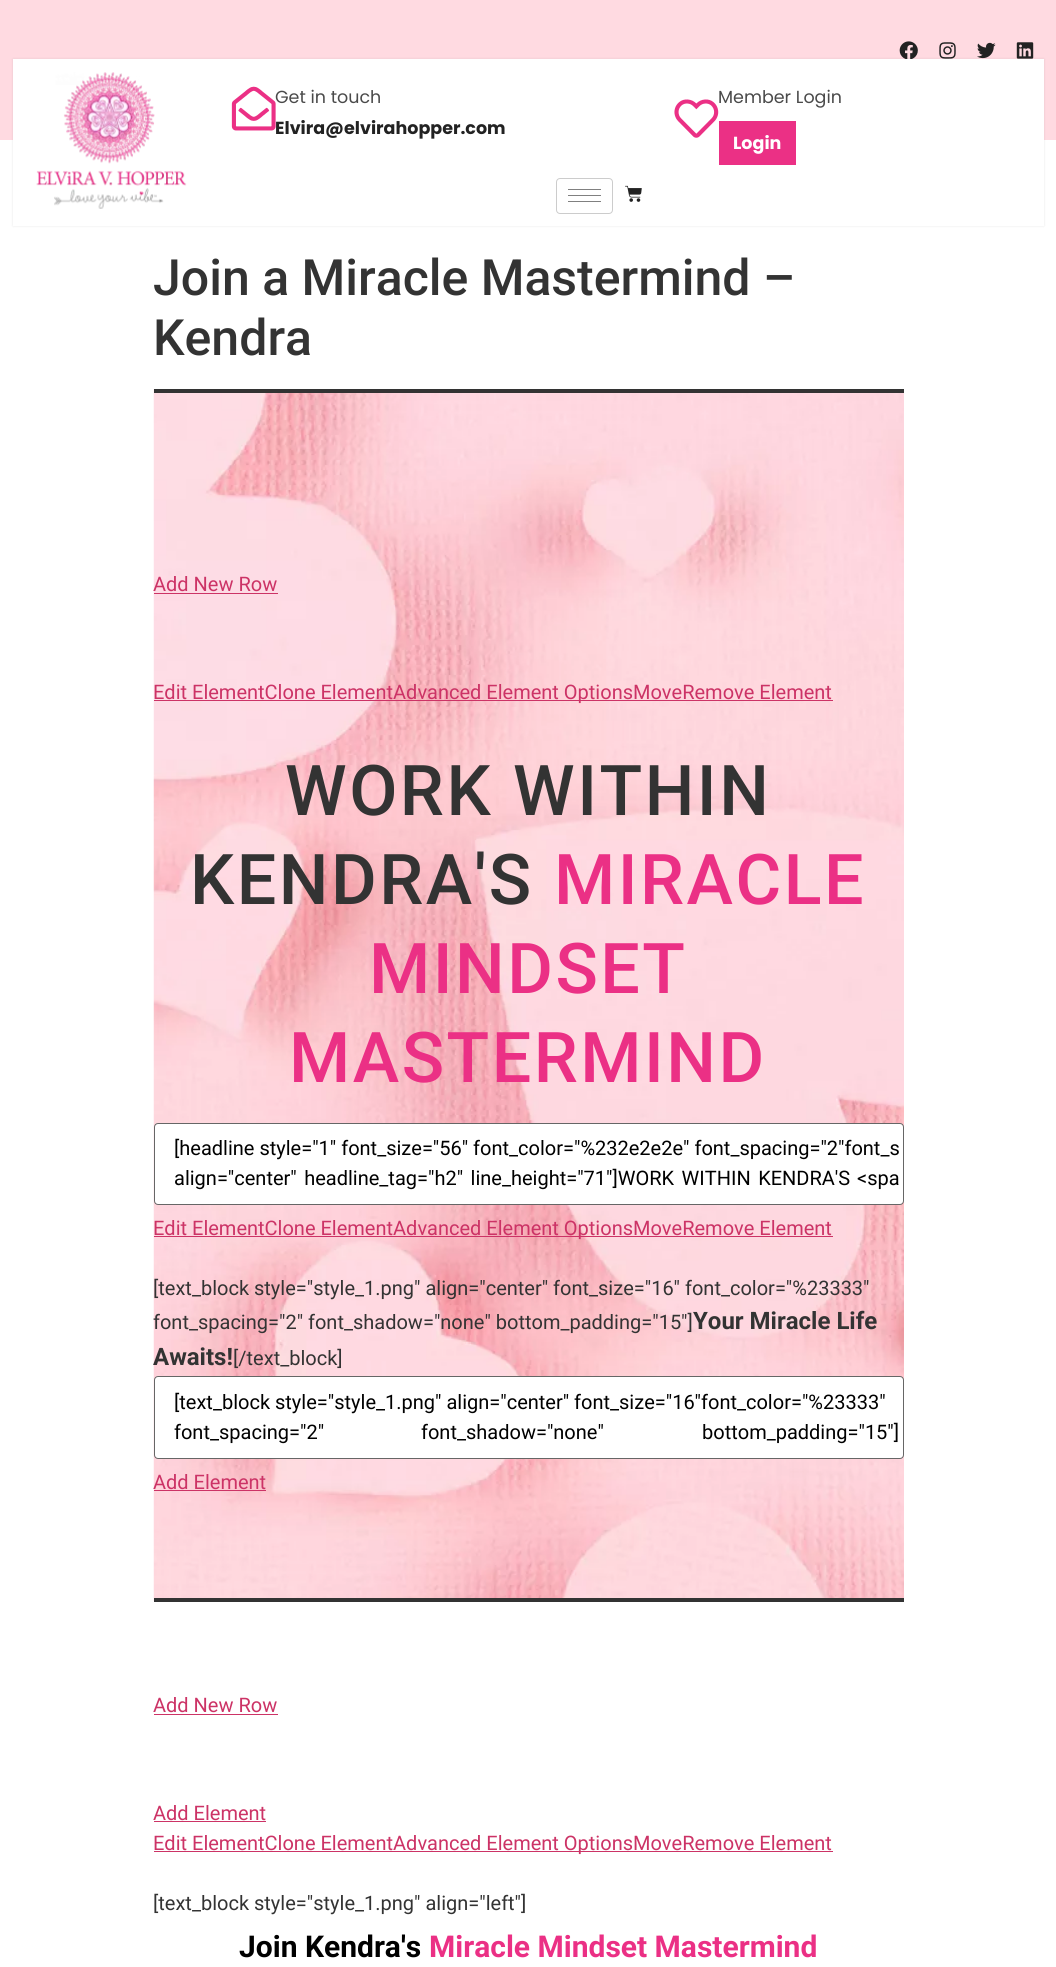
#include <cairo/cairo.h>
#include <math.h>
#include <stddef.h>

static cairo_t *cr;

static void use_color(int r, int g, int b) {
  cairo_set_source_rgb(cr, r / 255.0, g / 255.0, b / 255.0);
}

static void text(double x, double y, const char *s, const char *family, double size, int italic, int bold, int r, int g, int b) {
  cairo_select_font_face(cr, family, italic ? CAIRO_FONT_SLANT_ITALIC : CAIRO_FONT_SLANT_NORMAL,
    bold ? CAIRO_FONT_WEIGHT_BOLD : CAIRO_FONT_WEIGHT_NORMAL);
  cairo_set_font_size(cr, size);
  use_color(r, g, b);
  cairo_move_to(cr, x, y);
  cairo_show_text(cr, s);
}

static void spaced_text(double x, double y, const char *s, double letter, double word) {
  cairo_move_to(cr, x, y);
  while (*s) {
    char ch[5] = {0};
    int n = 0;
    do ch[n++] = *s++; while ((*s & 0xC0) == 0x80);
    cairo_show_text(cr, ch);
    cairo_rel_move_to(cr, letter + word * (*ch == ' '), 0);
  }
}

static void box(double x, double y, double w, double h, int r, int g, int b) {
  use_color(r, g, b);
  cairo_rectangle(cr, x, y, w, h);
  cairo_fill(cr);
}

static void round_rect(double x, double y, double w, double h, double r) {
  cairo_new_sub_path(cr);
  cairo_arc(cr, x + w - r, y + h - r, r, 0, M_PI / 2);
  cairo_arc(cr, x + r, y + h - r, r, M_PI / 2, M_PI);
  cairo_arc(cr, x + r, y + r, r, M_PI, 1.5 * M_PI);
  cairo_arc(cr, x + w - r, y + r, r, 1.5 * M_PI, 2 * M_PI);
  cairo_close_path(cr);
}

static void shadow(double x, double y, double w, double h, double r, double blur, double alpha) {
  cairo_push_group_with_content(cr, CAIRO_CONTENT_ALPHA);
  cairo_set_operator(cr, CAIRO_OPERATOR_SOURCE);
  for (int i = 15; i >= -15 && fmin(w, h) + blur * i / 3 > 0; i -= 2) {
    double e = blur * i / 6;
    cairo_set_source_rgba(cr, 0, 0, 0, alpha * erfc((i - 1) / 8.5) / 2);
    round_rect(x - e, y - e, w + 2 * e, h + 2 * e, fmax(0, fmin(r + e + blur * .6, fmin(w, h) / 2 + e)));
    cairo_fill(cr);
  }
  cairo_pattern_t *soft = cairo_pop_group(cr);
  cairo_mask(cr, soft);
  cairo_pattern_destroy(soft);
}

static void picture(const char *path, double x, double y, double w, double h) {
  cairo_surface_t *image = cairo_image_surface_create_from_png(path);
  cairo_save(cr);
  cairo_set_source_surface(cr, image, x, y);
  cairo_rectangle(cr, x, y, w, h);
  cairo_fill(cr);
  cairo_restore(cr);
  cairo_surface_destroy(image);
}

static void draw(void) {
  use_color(255, 255, 255);
  cairo_paint(cr);
  box(0, 0, 1056, 140, 255, 218, 225);
  picture("img_01.png", 899, 41, 19, 18);
  picture("img_02.png", 939, 42, 17, 17);
  picture("img_03.png", 977, 42, 19, 17);
  picture("img_04.png", 1016, 42, 18, 17);
  use_color(0, 0, 0);
  shadow(13, 59, 1031, 167, 0, 1, 0.1);
  box(13, 59, 1031, 167, 255, 255, 255);
  picture("img_05.png", 36, 72, 151, 137);
  picture("img_07.png", 674, 99, 45, 39);
  box(719, 121, 77, 44, 235, 48, 133);
  round_rect(556.5, 178.5, 56, 35, 3.5);
  use_color(204, 204, 204);
  cairo_set_line_width(cr, 1);
  cairo_stroke(cr);
  box(568, 189, 33, 1, 128, 128, 128);
  box(568, 195, 33, 1, 128, 128, 128);
  box(568, 201, 33, 1, 128, 128, 128);
  picture("img_08.png", 625, 185, 17, 17);
  picture("img_09.png", 153, 389, 751, 1212);
  box(154, 389, 750, 4, 51, 51, 51);
  box(154, 1598, 750, 4, 51, 51, 51);
  box(154, 593, 124, 1, 204, 51, 102);
  box(154, 700, 679, 1, 204, 51, 102);
  use_color(255, 255, 255);
  round_rect(154.5, 1123.5, 749, 81, 3.5);
  cairo_fill_preserve(cr);
  use_color(102, 102, 102);
  cairo_stroke(cr);
  box(154, 1236, 679, 1, 204, 51, 102);
  use_color(255, 255, 255);
  round_rect(154.5, 1376.5, 749, 82, 3.5);
  cairo_fill_preserve(cr);
  use_color(102, 102, 102);
  cairo_stroke(cr);
  box(154, 1490, 112, 1, 204, 51, 102);
  box(154, 1714, 124, 1, 204, 51, 102);
  box(154, 1821, 112, 1, 204, 51, 102);
  box(154, 1851, 679, 1, 204, 51, 102);
  text(275, 103, "Get in touch", "Poppins", 17.5, 0, 0, 74, 74, 74);
  picture("img_06.png", 231, 86, 45, 45);
  text(275, 134, "Elvira@elvirahopper.com", "Poppins", 17.5, 0, 1, 34, 34, 34);
  text(718, 103, "Member Login", "Poppins", 17.5, 0, 0, 74, 74, 74);
  text(733, 149, "Login", "Poppins", 17.5, 0, 1, 255, 255, 255);
  text(153, 295, "Join a Miracle Mastermind –", "Roboto Medium", 50, 0, 0, 51, 51, 51);
  text(153, 355, "Kendra", "Roboto Medium", 50, 0, 0, 51, 51, 51);
  text(153, 591, "Add New Row", "Roboto", 20, 0, 0, 204, 51, 102);
  text(153, 699, "Edit ElementClone ElementAdvanced Element OptionsMoveRemove Element", "Roboto", 20, 0, 0, 204, 51, 102);
  cairo_select_font_face(cr, "Roboto Medium", CAIRO_FONT_SLANT_NORMAL, CAIRO_FONT_WEIGHT_NORMAL);
  cairo_set_font_size(cr, 70);
  use_color(51, 51, 51);
  spaced_text(285, 815, "WORK WITHIN", 2.5, 0);
  spaced_text(190, 904, "KENDRA'S", 2.5, 0);
  use_color(235, 48, 133);
  spaced_text(554, 904, "MIRACLE", 2.5, 0);
  spaced_text(369, 993, "MINDSET", 2.5, 0);
  spaced_text(289, 1082, "MASTERMIND", 2.5, 0);
  text(174, 1155, "[headline style=\"1\" font_size=\"56\" font_color=\"%232e2e2e\" font_spacing=\"2\"font_s", "Roboto", 20, 0, 0, 0, 0, 0);
  spaced_text(174, 1185, "align=\"center\" headline_tag=\"h2\" line_height=\"71\"]WORK WITHIN KENDRA'S", 0, 2.5);
  text(857, 1185, "<spa", "Roboto", 20, 0, 0, 0, 0, 0);
  text(153, 1235, "Edit ElementClone ElementAdvanced Element OptionsMoveRemove Element", "Roboto", 20, 0, 0, 204, 51, 102);
  text(153, 1295, "[text_block style=\"style_1.png\" align=\"center\" font_size=\"16\" font_color=\"%23333\"", "Roboto", 20, 0, 0, 51, 51, 51);
  text(153, 1329, "font_spacing=\"2\" font_shadow=\"none\" bottom_padding=\"15\"]", "Roboto", 20, 0, 0, 51, 51, 51);
  text(693, 1329, "Your Miracle Life", "Roboto", 24, 0, 1, 51, 51, 51);
  text(153, 1365, "Awaits!", "Roboto", 24, 0, 1, 51, 51, 51);
  text(233, 1365, "[/text_block]", "Roboto", 20, 0, 0, 51, 51, 51);
  text(174, 1409, "[text_block style=\"style_1.png\" align=\"center\" font_size=\"16\"font_color=\"%23333\"", "Roboto", 20, 0, 0, 0, 0, 0);
  spaced_text(174, 1439, "font_spacing=\"2\" font_shadow=\"none\"", 0, 92);
  text(702, 1439, "bottom_padding=\"15\"]", "Roboto", 20, 0, 0, 0, 0, 0);
  text(153, 1489, "Add Element", "Roboto", 20, 0, 0, 204, 51, 102);
  text(153, 1712, "Add New Row", "Roboto", 20, 0, 0, 204, 51, 102);
  text(153, 1820, "Add Element", "Roboto", 20, 0, 0, 204, 51, 102);
  text(153, 1850, "Edit ElementClone ElementAdvanced Element OptionsMoveRemove Element", "Roboto", 20, 0, 0, 204, 51, 102);
  text(153, 1910, "[text_block style=\"style_1.png\" align=\"left\"]", "Roboto", 20, 0, 0, 51, 51, 51);
  text(239, 1957, "Join Kendra's", "Roboto", 30, 0, 1, 0, 0, 0);
  text(429, 1957, "Miracle Mindset Mastermind", "Roboto", 30, 0, 1, 235, 48, 133);
}

int main(void) {
  cairo_surface_t *surface = cairo_image_surface_create(CAIRO_FORMAT_RGB24, 1056, 1967);
  cr = cairo_create(surface);
  cairo_font_options_t *options = cairo_font_options_create();
  cairo_font_options_set_hint_metrics(options, CAIRO_HINT_METRICS_OFF);
  cairo_font_options_set_hint_style(options, CAIRO_HINT_STYLE_NONE);
  cairo_set_font_options(cr, options);
  cairo_set_miter_limit(cr, 4);
  draw();
  cairo_surface_write_to_png(surface, "out.png");
  cairo_font_options_destroy(options);
  cairo_destroy(cr);
  cairo_surface_destroy(surface);
  return 0;
}
